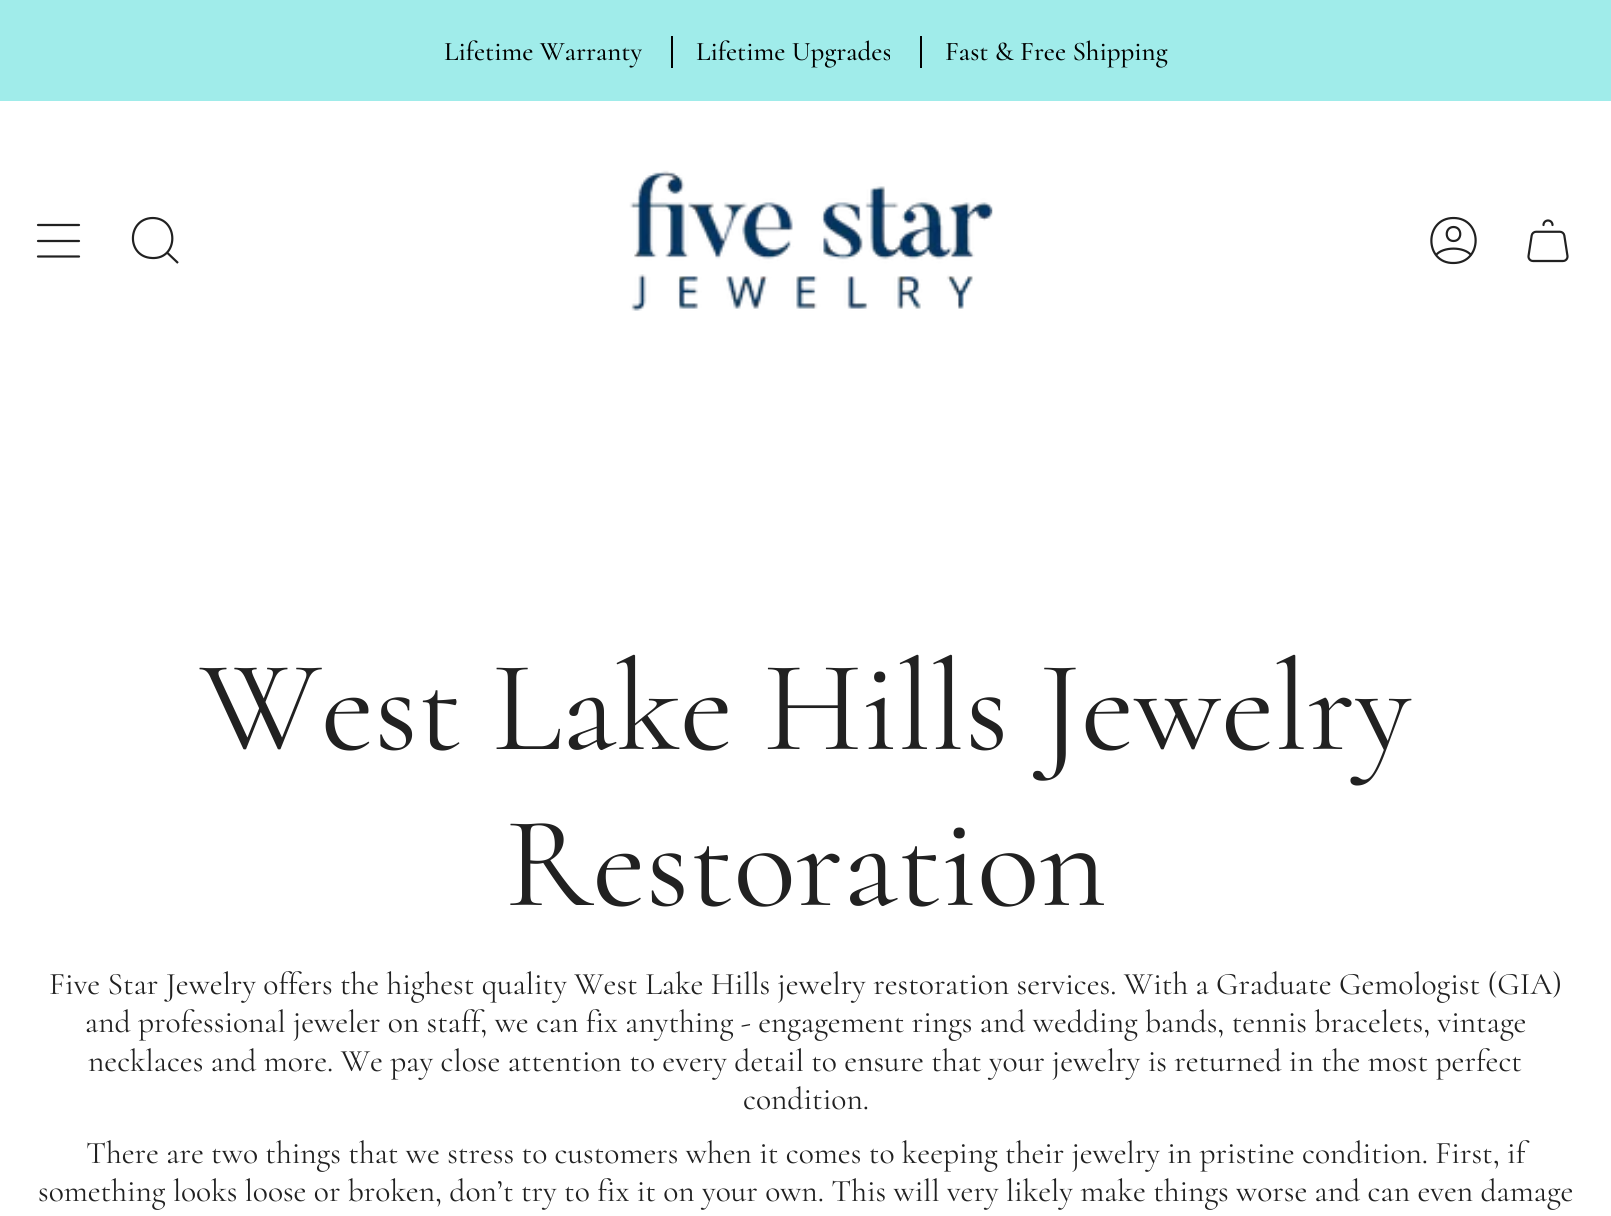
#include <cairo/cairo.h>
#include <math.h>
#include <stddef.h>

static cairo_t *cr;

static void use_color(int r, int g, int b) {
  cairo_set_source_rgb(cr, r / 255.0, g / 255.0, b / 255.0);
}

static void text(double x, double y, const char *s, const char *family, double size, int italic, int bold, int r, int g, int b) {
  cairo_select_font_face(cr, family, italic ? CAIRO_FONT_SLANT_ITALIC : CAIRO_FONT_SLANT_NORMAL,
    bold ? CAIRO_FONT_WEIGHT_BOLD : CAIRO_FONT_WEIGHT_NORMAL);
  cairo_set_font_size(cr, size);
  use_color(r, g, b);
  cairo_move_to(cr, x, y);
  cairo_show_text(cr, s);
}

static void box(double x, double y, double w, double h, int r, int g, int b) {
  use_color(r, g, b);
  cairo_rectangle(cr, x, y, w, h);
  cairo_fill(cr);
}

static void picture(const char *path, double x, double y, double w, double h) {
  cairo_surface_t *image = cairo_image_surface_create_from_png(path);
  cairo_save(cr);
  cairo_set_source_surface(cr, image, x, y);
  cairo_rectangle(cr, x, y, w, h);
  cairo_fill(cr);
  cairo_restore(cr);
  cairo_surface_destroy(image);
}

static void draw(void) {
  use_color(255, 255, 255);
  cairo_paint(cr);
  box(0, 0, 1611, 101, 160, 236, 234);
  box(671, 36, 2, 32, 0, 0, 0);
  box(920, 36, 2, 32, 0, 0, 0);
  cairo_new_path(cr);
  cairo_move_to(cr, 38, 225);
  cairo_line_to(cr, 79, 225);
  cairo_move_to(cr, 38, 241);
  cairo_line_to(cr, 79, 241);
  cairo_move_to(cr, 38, 256.5);
  cairo_line_to(cr, 79, 256.5);
  use_color(33, 33, 33);
  cairo_set_line_width(cr, 2.2);
  cairo_set_line_cap(cr, CAIRO_LINE_CAP_ROUND);
  cairo_set_line_join(cr, CAIRO_LINE_JOIN_ROUND);
  cairo_stroke(cr);
  cairo_new_path(cr);
  cairo_move_to(cr, 152.5, 218);
  cairo_curve_to(cr, 179, 218, 179, 259.5, 152, 258);
  cairo_curve_to(cr, 126, 257, 127, 218.5, 152.5, 218);
  cairo_close_path(cr);
  cairo_move_to(cr, 167, 252.5);
  cairo_line_to(cr, 178, 263);
  cairo_set_line_cap(cr, CAIRO_LINE_CAP_BUTT);
  cairo_set_line_join(cr, CAIRO_LINE_JOIN_MITER);
  cairo_stroke(cr);
  picture("img_01.png", 629, 170, 364, 141);
  cairo_new_path(cr);
  cairo_move_to(cr, 1453.5, 218);
  cairo_curve_to(cr, 1424, 218, 1424, 263.5, 1453.5, 263);
  cairo_curve_to(cr, 1483, 263, 1483, 218, 1453.5, 218);
  cairo_close_path(cr);
  cairo_move_to(cr, 1436, 255);
  cairo_curve_to(cr, 1443, 246.5, 1464, 246.5, 1471, 255);
  cairo_move_to(cr, 1453.5, 241);
  cairo_curve_to(cr, 1462.5, 241, 1462.5, 227, 1453.5, 227);
  cairo_curve_to(cr, 1444.5, 227, 1444.5, 241, 1453.5, 241);
  cairo_close_path(cr);
  cairo_set_line_cap(cr, CAIRO_LINE_CAP_ROUND);
  cairo_set_line_join(cr, CAIRO_LINE_JOIN_ROUND);
  cairo_stroke(cr);
  picture("img_02.png", 1527, 219, 42, 44);
  text(444, 60, "Lifetime Warranty", "Cormorant Medium", 27, 0, 0, 0, 0, 0);
  text(696, 60, "Lifetime Upgrades", "Cormorant Medium", 27, 0, 0, 0, 0, 0);
  text(945, 60, "Fast & Free Shipping", "Cormorant Medium", 27, 0, 0, 0, 0, 0);
  text(200, 749, "West Lake Hills Jewelry", "Cormorant", 130, 0, 0, 33, 33, 33);
  text(505, 905, "Restoration", "Cormorant", 130, 0, 0, 33, 33, 33);
  text(49, 994, "Five Star Jewelry offers the highest quality West Lake Hills jewelry restoration services. With a Graduate Gemologist (GIA)", "Cormorant", 31.5, 0, 0, 33, 33, 33);
  text(85, 1032, "and professional jeweler on staff, we can fix anything - engagement rings and wedding bands, tennis bracelets, vintage", "Cormorant", 31.5, 0, 0, 33, 33, 33);
  text(88, 1071, "necklaces and more. We pay close attention to every detail to ensure that your jewelry is returned in the most perfect", "Cormorant", 31.5, 0, 0, 33, 33, 33);
  text(743, 1109, "condition.", "Cormorant", 31.5, 0, 0, 33, 33, 33);
  text(86, 1163, "There are two things that we stress to customers when it comes to keeping their jewelry in pristine condition. First, if", "Cormorant", 31.5, 0, 0, 33, 33, 33);
  text(38, 1201, "something looks loose or broken, don’t try to fix it on your own. This will very likely make things worse and can even damage", "Cormorant", 31.5, 0, 0, 33, 33, 33);
}

int main(void) {
  cairo_surface_t *surface = cairo_image_surface_create(CAIRO_FORMAT_RGB24, 1611, 1216);
  cr = cairo_create(surface);
  cairo_font_options_t *options = cairo_font_options_create();
  cairo_font_options_set_hint_metrics(options, CAIRO_HINT_METRICS_OFF);
  cairo_font_options_set_hint_style(options, CAIRO_HINT_STYLE_NONE);
  cairo_set_font_options(cr, options);
  cairo_set_miter_limit(cr, 4);
  draw();
  cairo_surface_write_to_png(surface, "out.png");
  cairo_font_options_destroy(options);
  cairo_destroy(cr);
  cairo_surface_destroy(surface);
  return 0;
}
